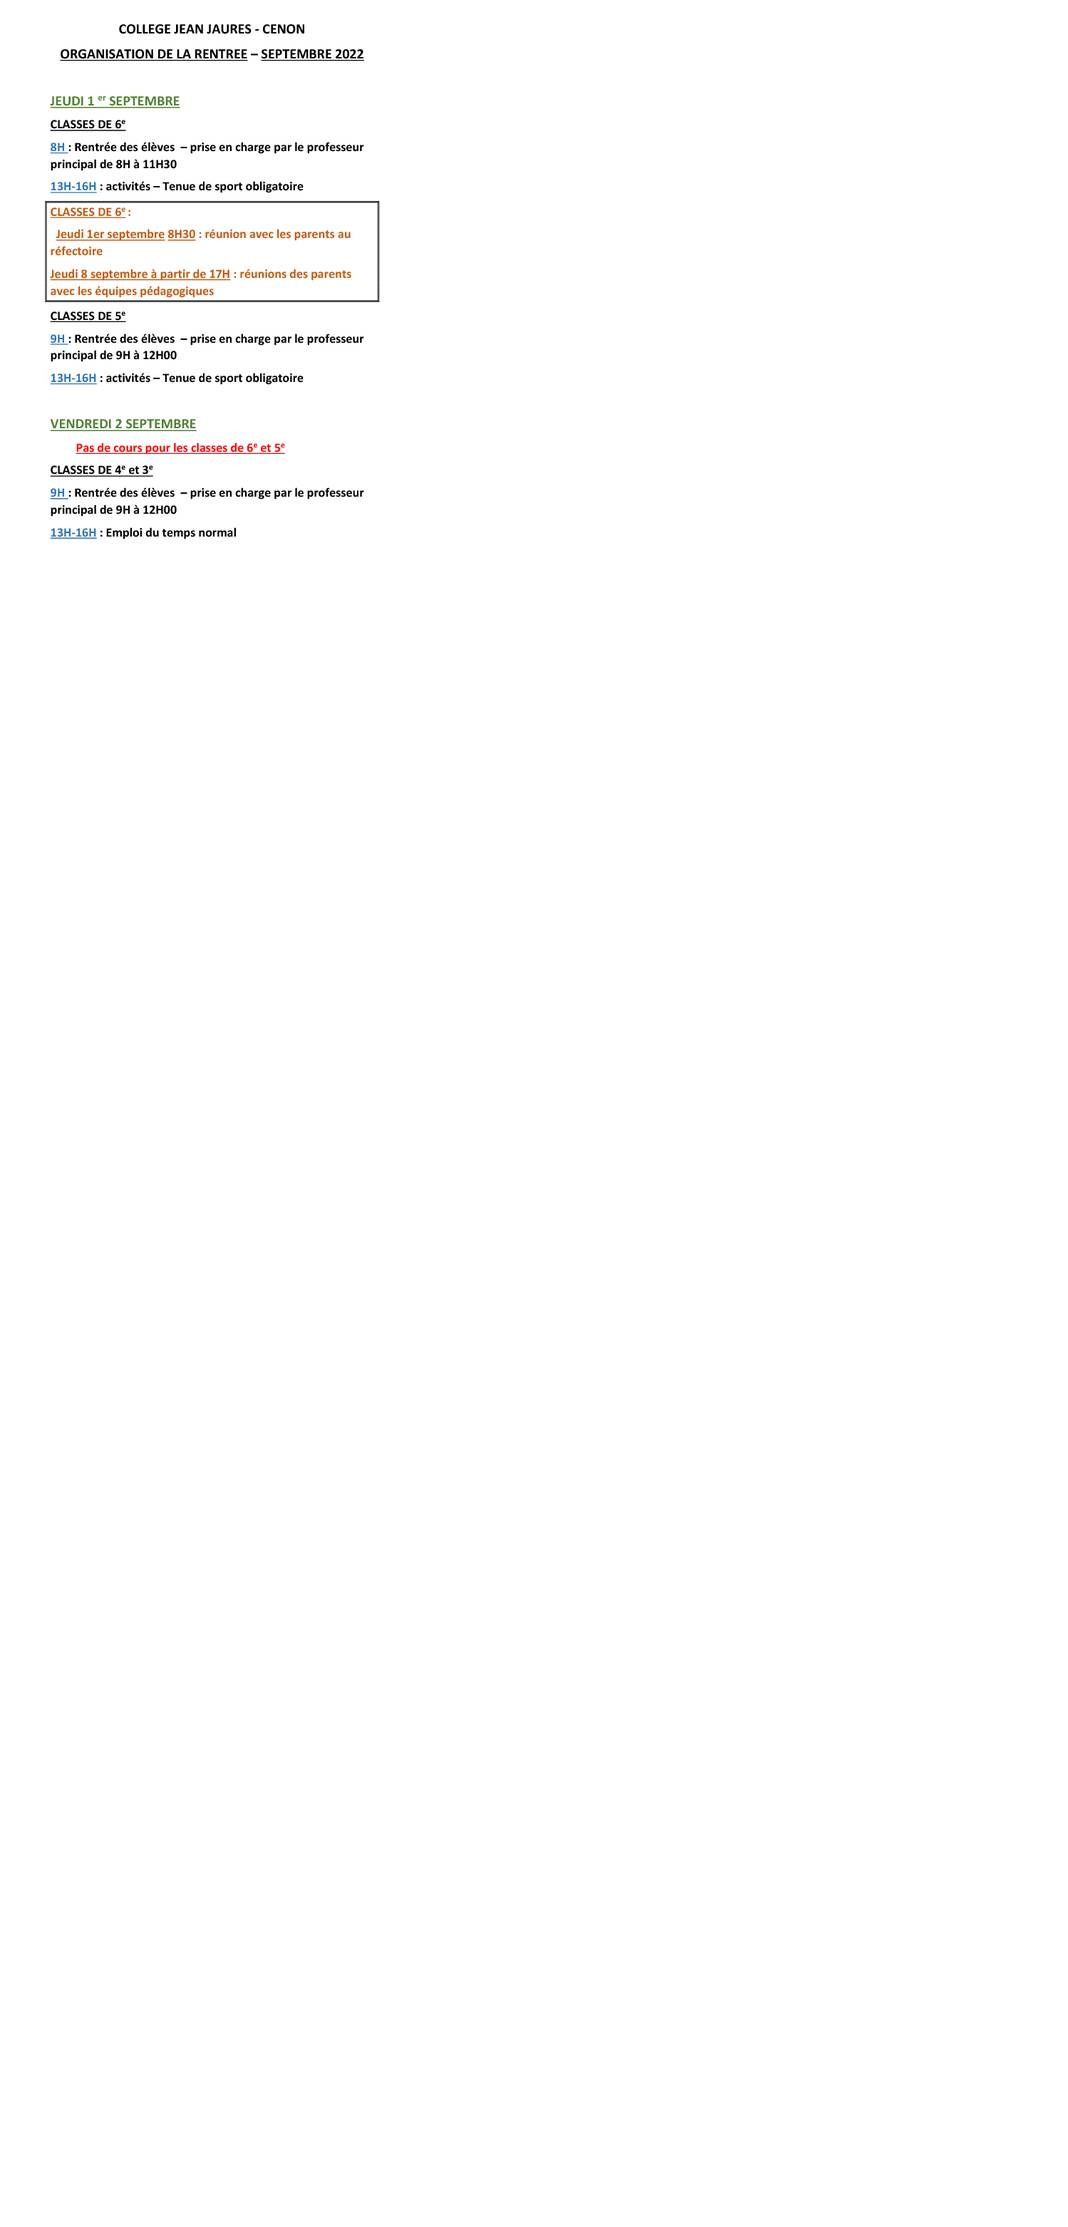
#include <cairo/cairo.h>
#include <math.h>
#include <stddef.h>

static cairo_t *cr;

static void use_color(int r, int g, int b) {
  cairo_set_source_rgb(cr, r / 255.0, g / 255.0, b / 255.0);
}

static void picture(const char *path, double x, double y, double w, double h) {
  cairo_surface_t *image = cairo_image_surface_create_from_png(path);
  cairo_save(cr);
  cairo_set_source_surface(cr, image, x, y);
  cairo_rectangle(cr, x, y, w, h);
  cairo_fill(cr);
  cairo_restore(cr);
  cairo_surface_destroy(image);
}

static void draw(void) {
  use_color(255, 255, 255);
  cairo_paint(cr);
  picture("img_01.png", 40, 24, 344, 521);
}

int main(void) {
  cairo_surface_t *surface = cairo_image_surface_create(CAIRO_FORMAT_RGB24, 1068, 2227);
  cr = cairo_create(surface);
  cairo_font_options_t *options = cairo_font_options_create();
  cairo_font_options_set_hint_metrics(options, CAIRO_HINT_METRICS_OFF);
  cairo_font_options_set_hint_style(options, CAIRO_HINT_STYLE_NONE);
  cairo_set_font_options(cr, options);
  cairo_set_miter_limit(cr, 4);
  draw();
  cairo_surface_write_to_png(surface, "out.png");
  cairo_font_options_destroy(options);
  cairo_destroy(cr);
  cairo_surface_destroy(surface);
  return 0;
}
